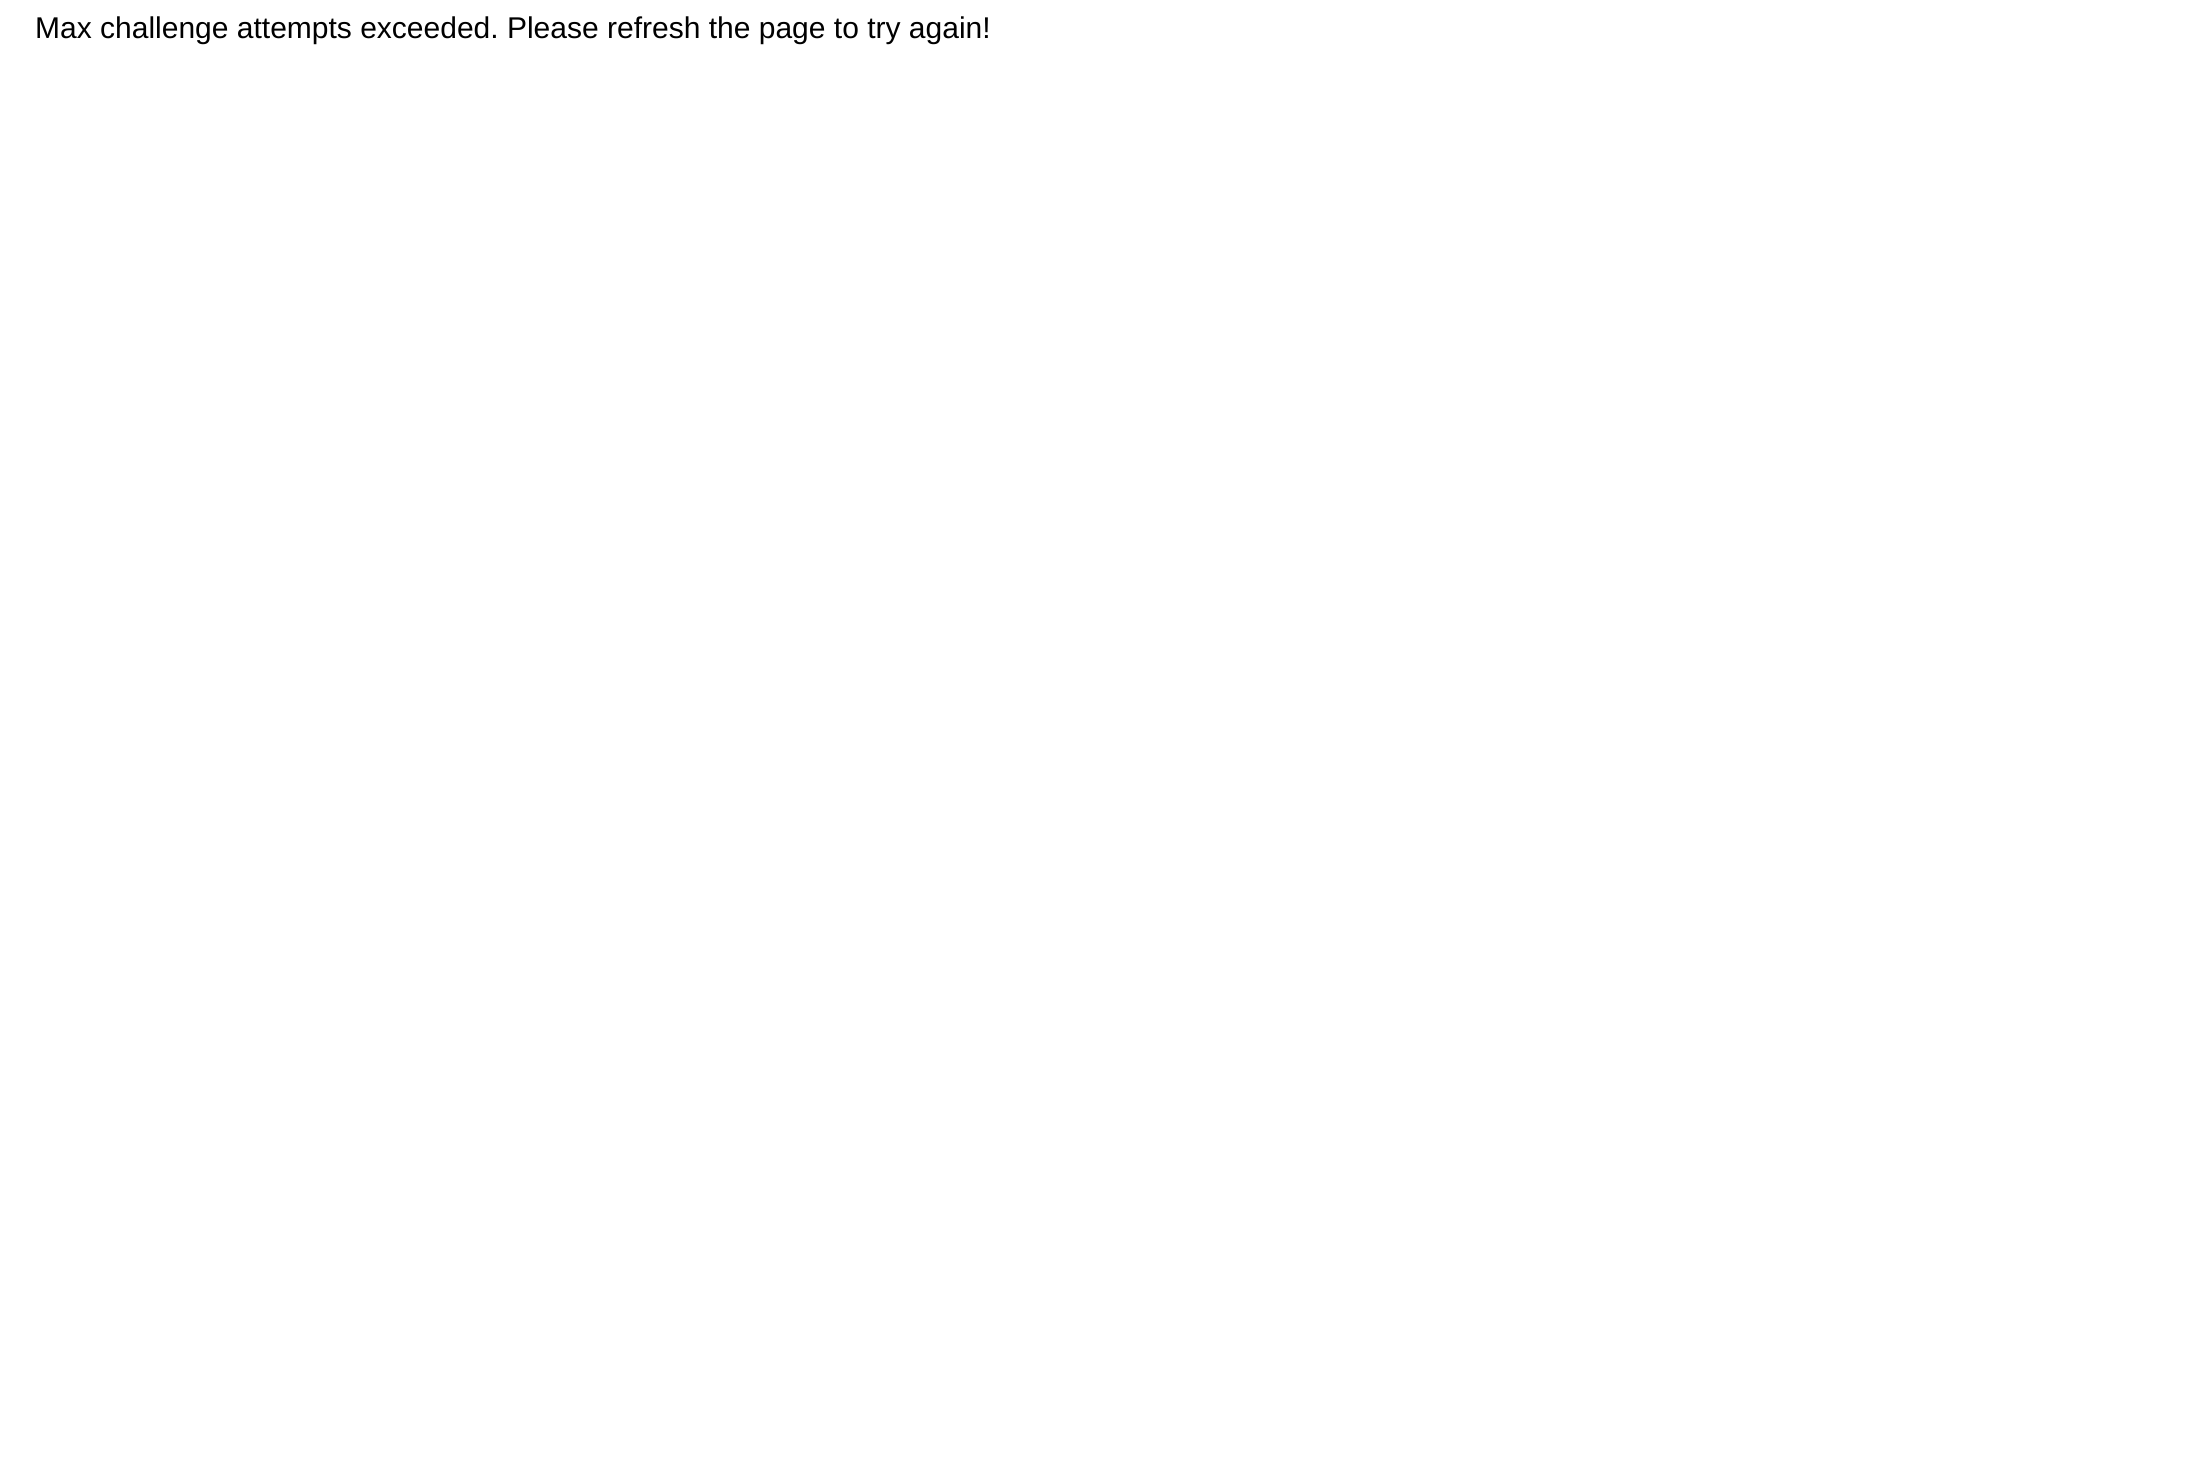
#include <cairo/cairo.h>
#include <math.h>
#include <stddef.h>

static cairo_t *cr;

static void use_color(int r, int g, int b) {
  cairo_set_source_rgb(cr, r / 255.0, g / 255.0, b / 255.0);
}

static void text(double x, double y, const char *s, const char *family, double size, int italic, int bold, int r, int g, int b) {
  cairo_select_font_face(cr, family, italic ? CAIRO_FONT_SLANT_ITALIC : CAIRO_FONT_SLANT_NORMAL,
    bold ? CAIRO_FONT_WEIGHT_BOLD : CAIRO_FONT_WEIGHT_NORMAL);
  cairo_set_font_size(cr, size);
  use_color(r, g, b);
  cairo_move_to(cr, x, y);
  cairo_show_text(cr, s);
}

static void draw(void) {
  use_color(255, 255, 255);
  cairo_paint(cr);
  text(35, 38, "Max challenge attempts exceeded. Please refresh the page to try again!", "Liberation Sans", 30, 0, 0, 0, 0, 0);
}

int main(void) {
  cairo_surface_t *surface = cairo_image_surface_create(CAIRO_FORMAT_RGB24, 2187, 1469);
  cr = cairo_create(surface);
  cairo_font_options_t *options = cairo_font_options_create();
  cairo_font_options_set_hint_metrics(options, CAIRO_HINT_METRICS_OFF);
  cairo_font_options_set_hint_style(options, CAIRO_HINT_STYLE_NONE);
  cairo_set_font_options(cr, options);
  cairo_set_miter_limit(cr, 4);
  draw();
  cairo_surface_write_to_png(surface, "out.png");
  cairo_font_options_destroy(options);
  cairo_destroy(cr);
  cairo_surface_destroy(surface);
  return 0;
}
